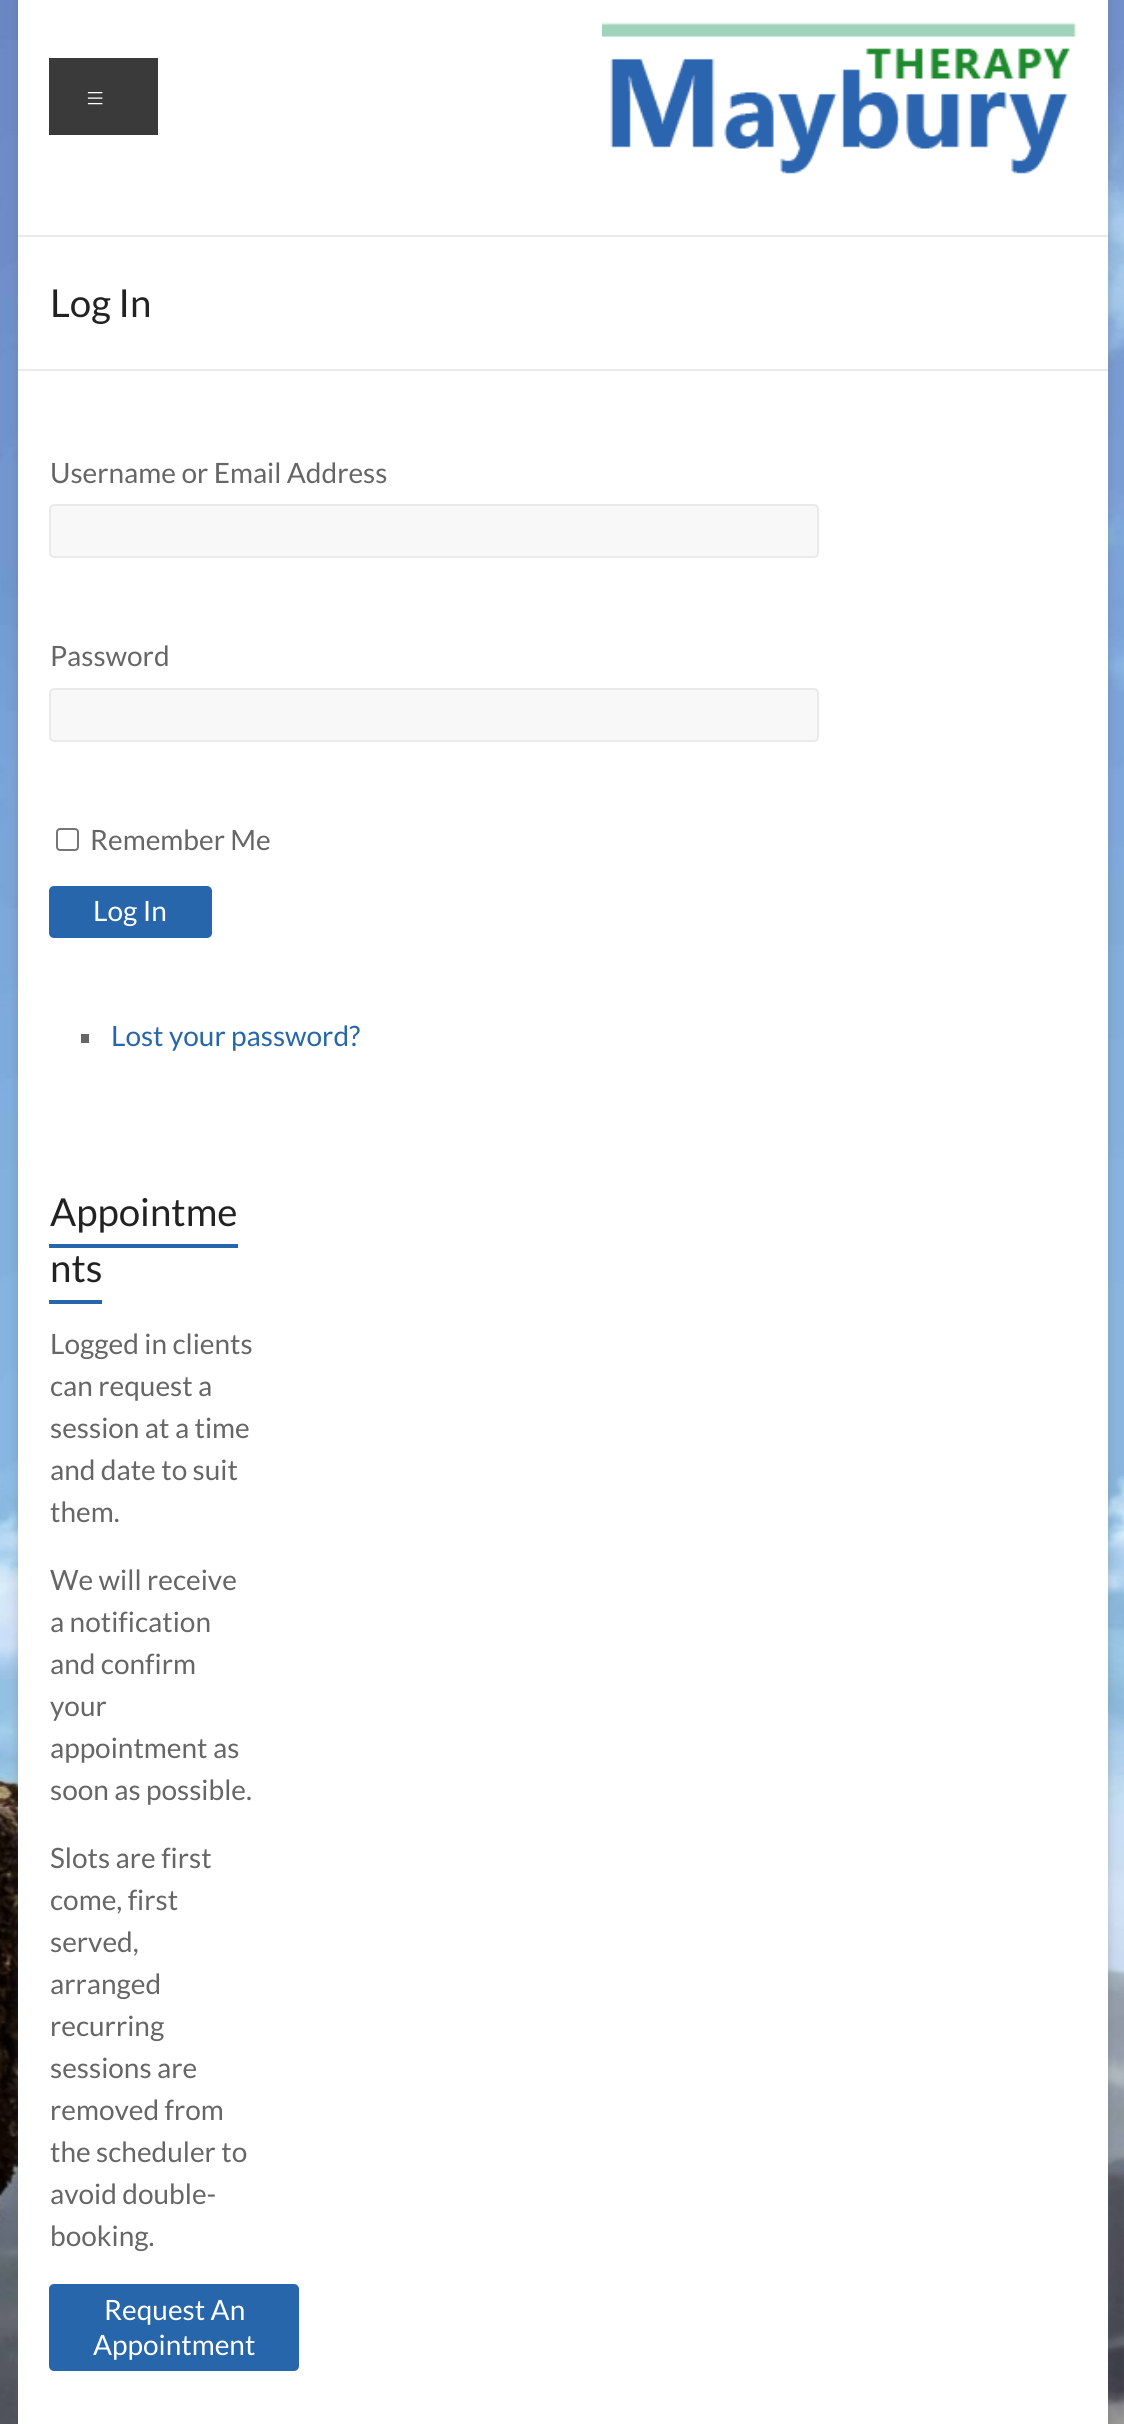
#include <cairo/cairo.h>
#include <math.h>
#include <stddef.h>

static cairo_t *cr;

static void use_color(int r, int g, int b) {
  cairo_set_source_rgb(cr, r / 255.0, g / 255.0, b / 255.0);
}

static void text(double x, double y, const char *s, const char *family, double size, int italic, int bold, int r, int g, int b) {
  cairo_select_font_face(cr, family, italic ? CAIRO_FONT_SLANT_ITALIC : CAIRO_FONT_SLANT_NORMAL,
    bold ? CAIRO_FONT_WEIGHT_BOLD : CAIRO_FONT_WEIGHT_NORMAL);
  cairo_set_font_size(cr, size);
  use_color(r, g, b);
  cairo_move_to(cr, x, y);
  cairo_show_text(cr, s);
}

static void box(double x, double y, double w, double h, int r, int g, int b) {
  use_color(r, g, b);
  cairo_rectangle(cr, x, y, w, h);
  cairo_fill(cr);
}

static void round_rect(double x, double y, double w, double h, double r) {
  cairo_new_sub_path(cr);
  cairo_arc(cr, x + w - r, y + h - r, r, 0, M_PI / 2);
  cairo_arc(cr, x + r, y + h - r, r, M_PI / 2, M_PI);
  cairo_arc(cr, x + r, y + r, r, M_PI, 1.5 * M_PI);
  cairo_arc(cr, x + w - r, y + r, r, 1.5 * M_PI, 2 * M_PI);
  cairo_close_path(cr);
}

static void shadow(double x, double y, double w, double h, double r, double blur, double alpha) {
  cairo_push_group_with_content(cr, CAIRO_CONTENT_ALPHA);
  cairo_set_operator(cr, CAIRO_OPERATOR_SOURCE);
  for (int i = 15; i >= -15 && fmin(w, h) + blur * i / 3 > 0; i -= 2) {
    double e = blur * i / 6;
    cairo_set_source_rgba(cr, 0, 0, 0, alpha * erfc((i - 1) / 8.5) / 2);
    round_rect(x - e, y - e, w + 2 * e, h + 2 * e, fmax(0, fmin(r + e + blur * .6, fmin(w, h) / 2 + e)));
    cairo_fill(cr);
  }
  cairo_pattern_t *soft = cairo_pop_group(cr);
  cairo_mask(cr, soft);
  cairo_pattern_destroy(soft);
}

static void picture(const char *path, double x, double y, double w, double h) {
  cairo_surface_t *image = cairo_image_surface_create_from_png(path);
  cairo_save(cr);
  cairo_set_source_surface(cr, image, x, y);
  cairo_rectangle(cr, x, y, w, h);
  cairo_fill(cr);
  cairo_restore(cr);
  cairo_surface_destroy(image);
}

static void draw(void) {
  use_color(255, 255, 255);
  cairo_paint(cr);
  picture("img_01.png", 0, 0, 1124, 2424);
  use_color(100, 100, 100);
  shadow(18, 0, 1090, 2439, 0, 5, 0.3);
  box(18, 0, 1090, 2424, 255, 255, 255);
  box(18, 235, 1090, 2, 234, 234, 234);
  box(49, 58, 109, 77, 58, 58, 58);
  picture("img_02.png", 602, 22, 475, 152);
  box(18, 369, 1090, 2, 234, 234, 234);
  use_color(248, 248, 248);
  round_rect(50, 505, 768, 52, 4);
  cairo_fill_preserve(cr);
  use_color(234, 234, 234);
  cairo_stroke(cr);
  use_color(248, 248, 248);
  round_rect(50, 689, 768, 52, 4);
  cairo_fill_preserve(cr);
  use_color(234, 234, 234);
  cairo_stroke(cr);
  round_rect(57, 829, 21, 21, 3);
  use_color(118, 118, 118);
  cairo_stroke(cr);
  use_color(40, 102, 171);
  round_rect(49, 886, 163, 52, 5);
  cairo_fill(cr);
  box(81, 1034, 8, 9, 102, 102, 102);
  box(49, 1244, 189, 4, 40, 102, 171);
  box(49, 1300, 53, 4, 40, 102, 171);
  round_rect(49, 2284, 250, 87, 5);
  cairo_fill(cr);
  text(85, 110, "≡", "Lato Light", 35, 0, 0, 255, 255, 255);
  text(50, 317, "Log In", "Lato", 38.5, 0, 0, 34, 34, 34);
  text(50, 483, "Username or Email Address", "Lato", 28, 0, 0, 102, 102, 102);
  text(50, 666, "Password", "Lato", 28, 0, 0, 102, 102, 102);
  text(90, 850, "Remember Me", "Lato", 28, 0, 0, 102, 102, 102);
  text(93, 921, "Log In", "Lato", 28, 0, 0, 255, 255, 255);
  text(111, 1046, "Lost your password?", "Lato", 28, 0, 0, 40, 102, 171);
  text(50, 1226, "Appointme", "Lato", 38.5, 0, 0, 34, 34, 34);
  text(50, 1282, "nts", "Lato", 38.5, 0, 0, 34, 34, 34);
  text(50, 1354, "Logged in clients", "Lato", 28, 0, 0, 102, 102, 102);
  text(50, 1396, "can request a", "Lato", 28, 0, 0, 102, 102, 102);
  text(50, 1438, "session at a time", "Lato", 28, 0, 0, 102, 102, 102);
  text(50, 1480, "and date to suit", "Lato", 28, 0, 0, 102, 102, 102);
  text(50, 1522, "them.", "Lato", 28, 0, 0, 102, 102, 102);
  text(50, 1590, "We will receive", "Lato", 28, 0, 0, 102, 102, 102);
  text(50, 1632, "a notification", "Lato", 28, 0, 0, 102, 102, 102);
  text(50, 1674, "and confirm", "Lato", 28, 0, 0, 102, 102, 102);
  text(50, 1716, "your", "Lato", 28, 0, 0, 102, 102, 102);
  text(50, 1758, "appointment as", "Lato", 28, 0, 0, 102, 102, 102);
  text(50, 1800, "soon as possible.", "Lato", 28, 0, 0, 102, 102, 102);
  text(50, 1868, "Slots are first", "Lato", 28, 0, 0, 102, 102, 102);
  text(50, 1910, "come, first", "Lato", 28, 0, 0, 102, 102, 102);
  text(50, 1952, "served,", "Lato", 28, 0, 0, 102, 102, 102);
  text(50, 1994, "arranged", "Lato", 28, 0, 0, 102, 102, 102);
  text(50, 2036, "recurring", "Lato", 28, 0, 0, 102, 102, 102);
  text(50, 2078, "sessions are", "Lato", 28, 0, 0, 102, 102, 102);
  text(50, 2120, "removed from", "Lato", 28, 0, 0, 102, 102, 102);
  text(50, 2162, "the scheduler to", "Lato", 28, 0, 0, 102, 102, 102);
  text(50, 2204, "avoid double-", "Lato", 28, 0, 0, 102, 102, 102);
  text(50, 2246, "booking.", "Lato", 28, 0, 0, 102, 102, 102);
  text(104, 2320, "Request An", "Lato", 28, 0, 0, 255, 255, 255);
  text(93, 2355, "Appointment", "Lato", 28, 0, 0, 255, 255, 255);
}

int main(void) {
  cairo_surface_t *surface = cairo_image_surface_create(CAIRO_FORMAT_RGB24, 1124, 2424);
  cr = cairo_create(surface);
  cairo_font_options_t *options = cairo_font_options_create();
  cairo_font_options_set_hint_metrics(options, CAIRO_HINT_METRICS_OFF);
  cairo_font_options_set_hint_style(options, CAIRO_HINT_STYLE_NONE);
  cairo_set_font_options(cr, options);
  cairo_set_miter_limit(cr, 4);
  draw();
  cairo_surface_write_to_png(surface, "out.png");
  cairo_font_options_destroy(options);
  cairo_destroy(cr);
  cairo_surface_destroy(surface);
  return 0;
}
